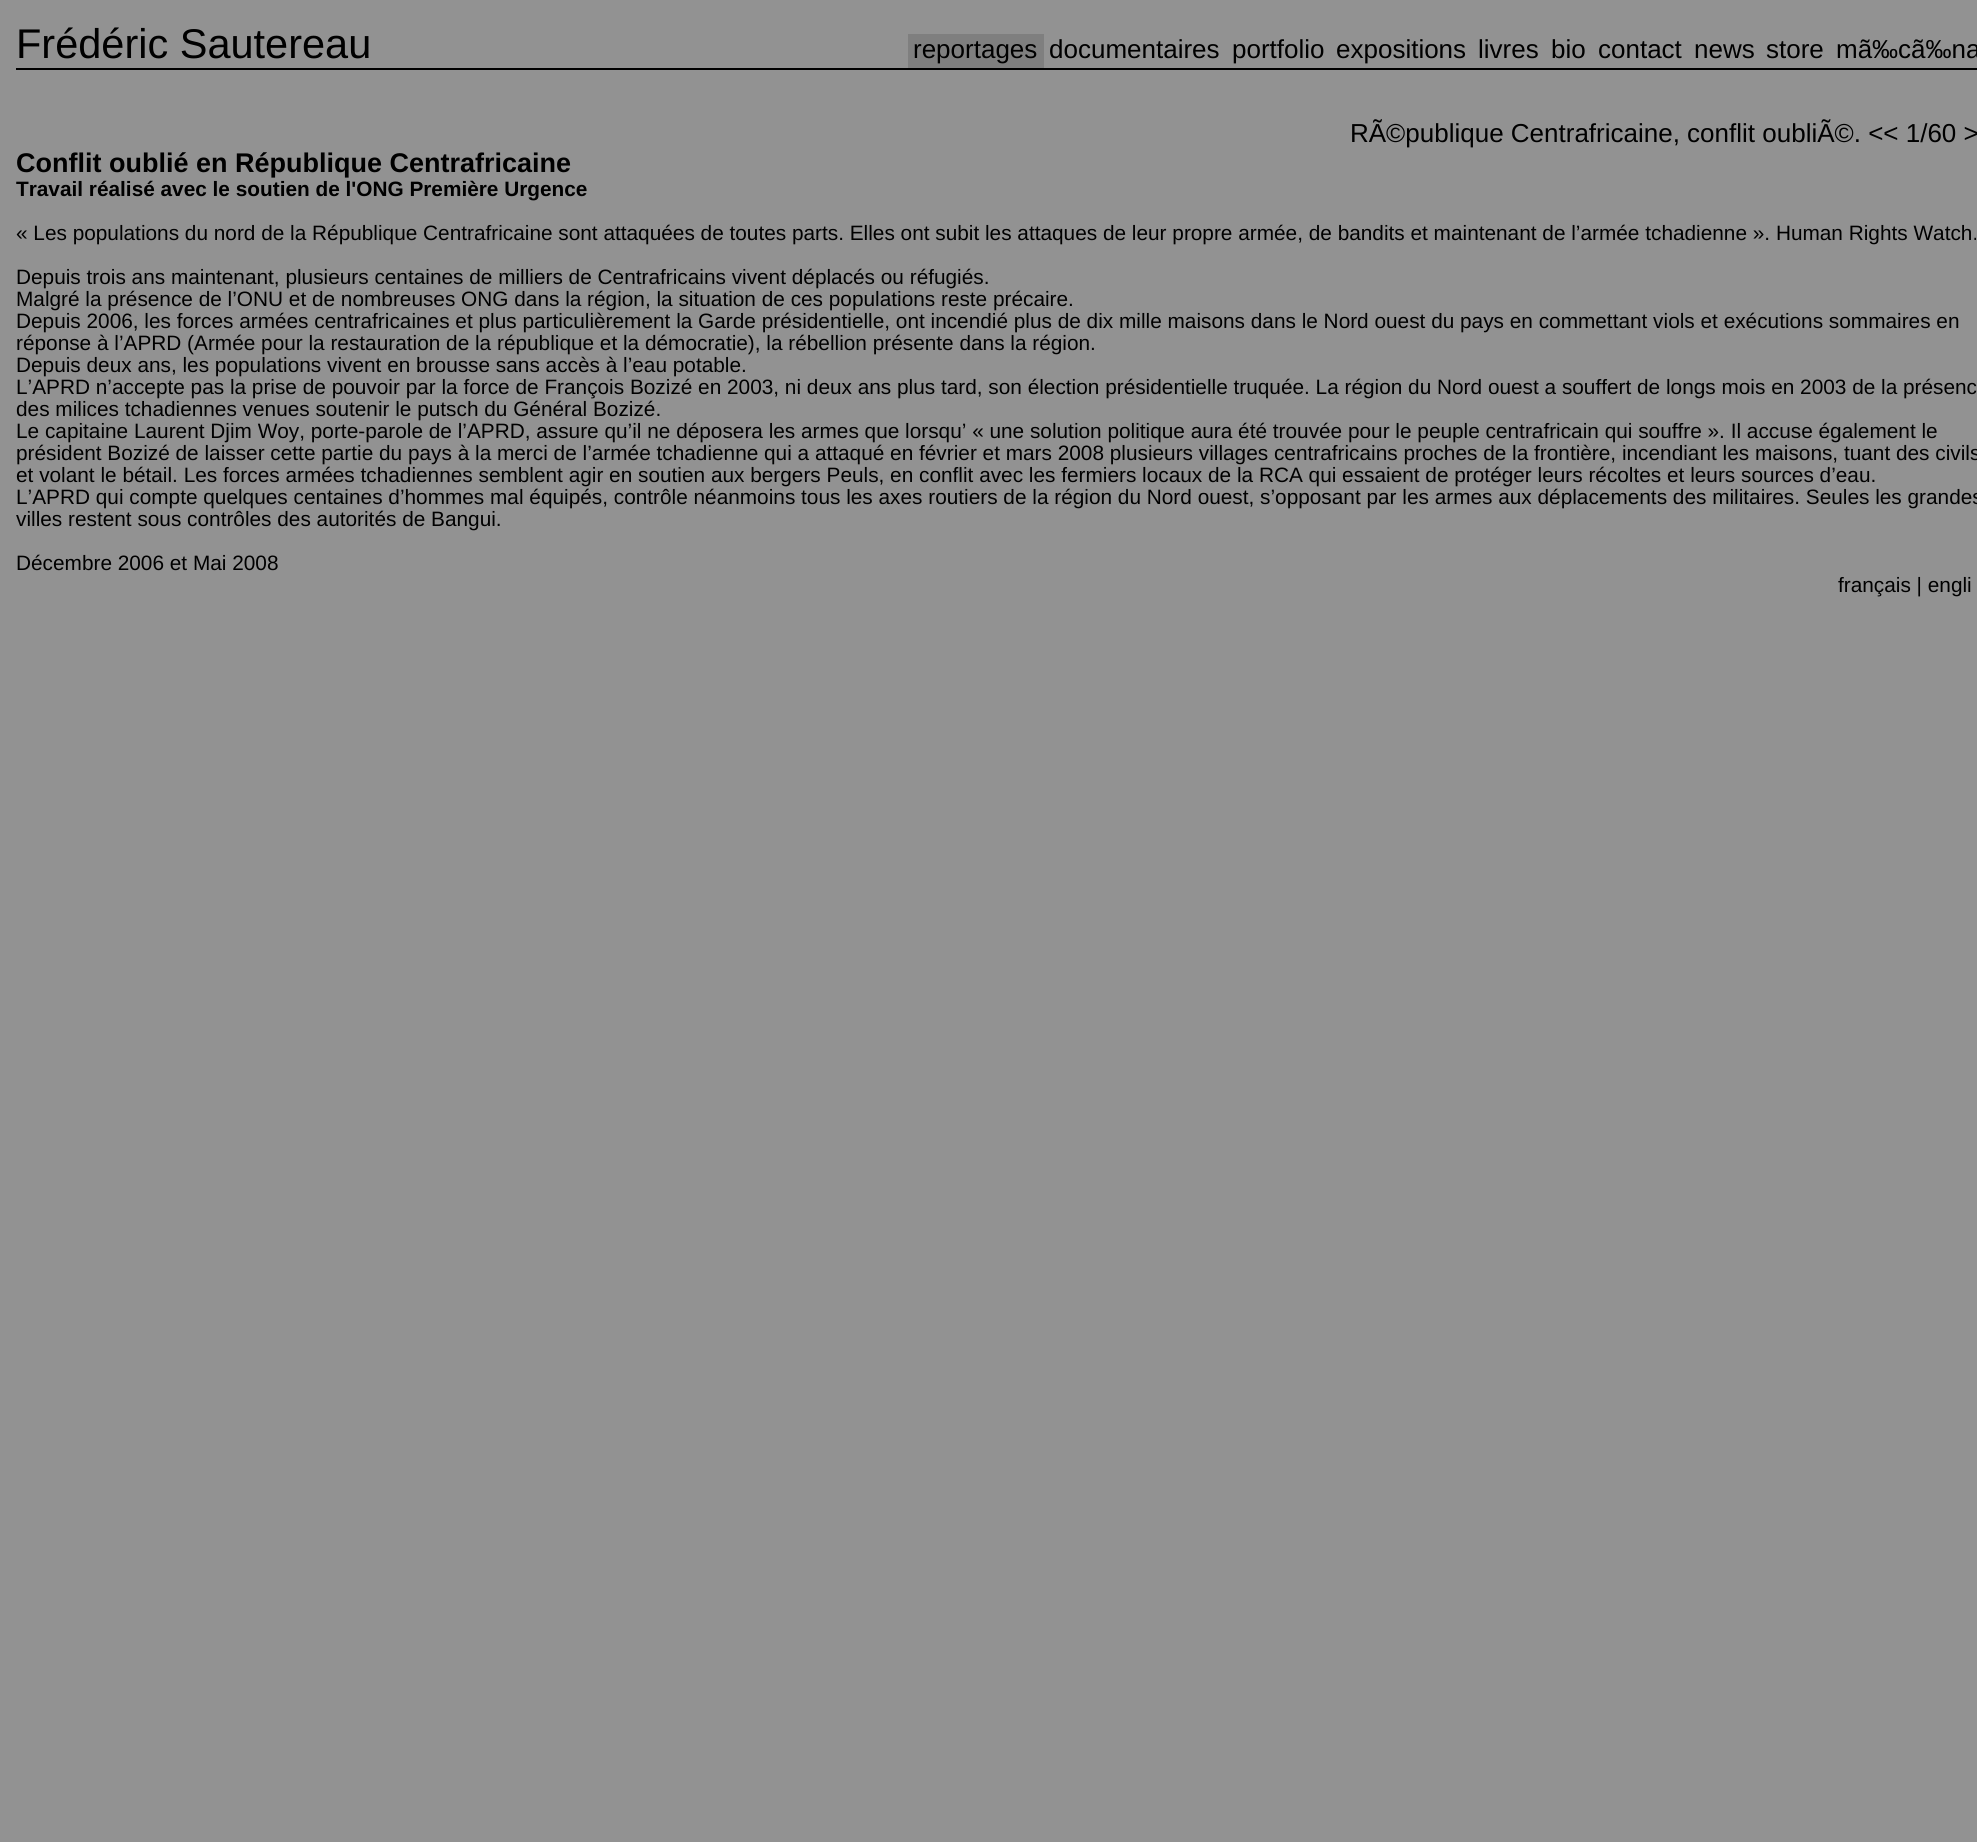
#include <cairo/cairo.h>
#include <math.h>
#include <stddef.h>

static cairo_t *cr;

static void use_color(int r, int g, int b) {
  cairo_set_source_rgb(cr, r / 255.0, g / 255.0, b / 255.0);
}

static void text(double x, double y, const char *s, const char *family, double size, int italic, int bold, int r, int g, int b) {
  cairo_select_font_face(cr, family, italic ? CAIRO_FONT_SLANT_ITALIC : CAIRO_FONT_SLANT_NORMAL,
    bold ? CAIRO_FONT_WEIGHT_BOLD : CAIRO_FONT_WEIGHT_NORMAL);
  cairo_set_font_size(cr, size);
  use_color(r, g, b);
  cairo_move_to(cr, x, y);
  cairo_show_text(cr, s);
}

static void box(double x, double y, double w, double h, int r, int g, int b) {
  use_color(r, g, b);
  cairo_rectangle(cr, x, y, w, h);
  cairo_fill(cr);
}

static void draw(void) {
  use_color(146, 146, 146);
  cairo_paint(cr);
  box(16, 68, 1961, 2, 0, 0, 0);
  box(908, 34, 136, 34, 127, 127, 127);
  text(16, 58, "Frédéric Sautereau", "Liberation Sans", 41.5, 0, 0, 0, 0, 0);
  text(913, 58, "reportages", "Liberation Sans", 26, 0, 0, 0, 0, 0);
  text(1049, 58, "documentaires", "Liberation Sans", 26, 0, 0, 0, 0, 0);
  text(1232, 58, "portfolio", "Liberation Sans", 26, 0, 0, 0, 0, 0);
  text(1336, 58, "expositions", "Liberation Sans", 26, 0, 0, 0, 0, 0);
  text(1478, 58, "livres", "Liberation Sans", 26, 0, 0, 0, 0, 0);
  text(1551, 58, "bio", "Liberation Sans", 26, 0, 0, 0, 0, 0);
  text(1598, 58, "contact", "Liberation Sans", 26, 0, 0, 0, 0, 0);
  text(1694, 58, "news", "Liberation Sans", 26, 0, 0, 0, 0, 0);
  text(1766, 58, "store", "Liberation Sans", 26, 0, 0, 0, 0, 0);
  text(1836, 58, "mã‰cã‰na", "Liberation Sans", 26, 0, 0, 0, 0, 0);
  text(1350, 142, "RÃ©publique Centrafricaine, conflit oubliÃ©. << 1/60 >", "Liberation Sans", 26, 0, 0, 0, 0, 0);
  text(16, 172, "Conflit oublié en République Centrafricaine", "Liberation Sans", 27, 0, 1, 0, 0, 0);
  text(16, 196, "Travail réalisé avec le soutien de l'ONG Première Urgence", "Liberation Sans", 20.8, 0, 1, 0, 0, 0);
  text(16, 240, "« Les populations du nord de la République Centrafricaine sont attaquées de toutes parts. Elles ont subit les attaques de leur propre armée, de bandits et maintenant de l’armée tchadienne ». Human Rights Watch.", "Liberation Sans", 20.8, 0, 0, 0, 0, 0);
  text(16, 284, "Depuis trois ans maintenant, plusieurs centaines de milliers de Centrafricains vivent déplacés ou réfugiés.", "Liberation Sans", 20.8, 0, 0, 0, 0, 0);
  text(16, 306, "Malgré la présence de l’ONU et de nombreuses ONG dans la région, la situation de ces populations reste précaire.", "Liberation Sans", 20.8, 0, 0, 0, 0, 0);
  text(16, 328, "Depuis 2006, les forces armées centrafricaines et plus particulièrement la Garde présidentielle, ont incendié plus de dix mille maisons dans le Nord ouest du pays en commettant viols et exécutions sommaires en", "Liberation Sans", 20.8, 0, 0, 0, 0, 0);
  text(16, 350, "réponse à l’APRD (Armée pour la restauration de la république et la démocratie), la rébellion présente dans la région.", "Liberation Sans", 20.8, 0, 0, 0, 0, 0);
  text(16, 372, "Depuis deux ans, les populations vivent en brousse sans accès à l’eau potable.", "Liberation Sans", 20.8, 0, 0, 0, 0, 0);
  text(16, 394, "L’APRD n’accepte pas la prise de pouvoir par la force de François Bozizé en 2003, ni deux ans plus tard, son élection présidentielle truquée. La région du Nord ouest a souffert de longs mois en 2003 de la présenc", "Liberation Sans", 20.8, 0, 0, 0, 0, 0);
  text(16, 416, "des milices tchadiennes venues soutenir le putsch du Général Bozizé.", "Liberation Sans", 20.8, 0, 0, 0, 0, 0);
  text(16, 438, "Le capitaine Laurent Djim Woy, porte-parole de l’APRD, assure qu’il ne déposera les armes que lorsqu’ « une solution politique aura été trouvée pour le peuple centrafricain qui souffre ». Il accuse également le", "Liberation Sans", 20.8, 0, 0, 0, 0, 0);
  text(16, 460, "président Bozizé de laisser cette partie du pays à la merci de l’armée tchadienne qui a attaqué en février et mars 2008 plusieurs villages centrafricains proches de la frontière, incendiant les maisons, tuant des civils", "Liberation Sans", 20.8, 0, 0, 0, 0, 0);
  text(16, 482, "et volant le bétail. Les forces armées tchadiennes semblent agir en soutien aux bergers Peuls, en conflit avec les fermiers locaux de la RCA qui essaient de protéger leurs récoltes et leurs sources d’eau.", "Liberation Sans", 20.8, 0, 0, 0, 0, 0);
  text(16, 504, "L’APRD qui compte quelques centaines d’hommes mal équipés, contrôle néanmoins tous les axes routiers de la région du Nord ouest, s’opposant par les armes aux déplacements des militaires. Seules les grandes", "Liberation Sans", 20.8, 0, 0, 0, 0, 0);
  text(16, 526, "villes restent sous contrôles des autorités de Bangui.", "Liberation Sans", 20.8, 0, 0, 0, 0, 0);
  text(16, 570, "Décembre 2006 et Mai 2008", "Liberation Sans", 20.8, 0, 0, 0, 0, 0);
  text(1838, 592, "français | engli", "Liberation Sans", 20.8, 0, 0, 0, 0, 0);
}

int main(void) {
  cairo_surface_t *surface = cairo_image_surface_create(CAIRO_FORMAT_RGB24, 1977, 1842);
  cr = cairo_create(surface);
  cairo_font_options_t *options = cairo_font_options_create();
  cairo_font_options_set_hint_metrics(options, CAIRO_HINT_METRICS_OFF);
  cairo_font_options_set_hint_style(options, CAIRO_HINT_STYLE_NONE);
  cairo_set_font_options(cr, options);
  cairo_set_miter_limit(cr, 4);
  draw();
  cairo_surface_write_to_png(surface, "out.png");
  cairo_font_options_destroy(options);
  cairo_destroy(cr);
  cairo_surface_destroy(surface);
  return 0;
}
